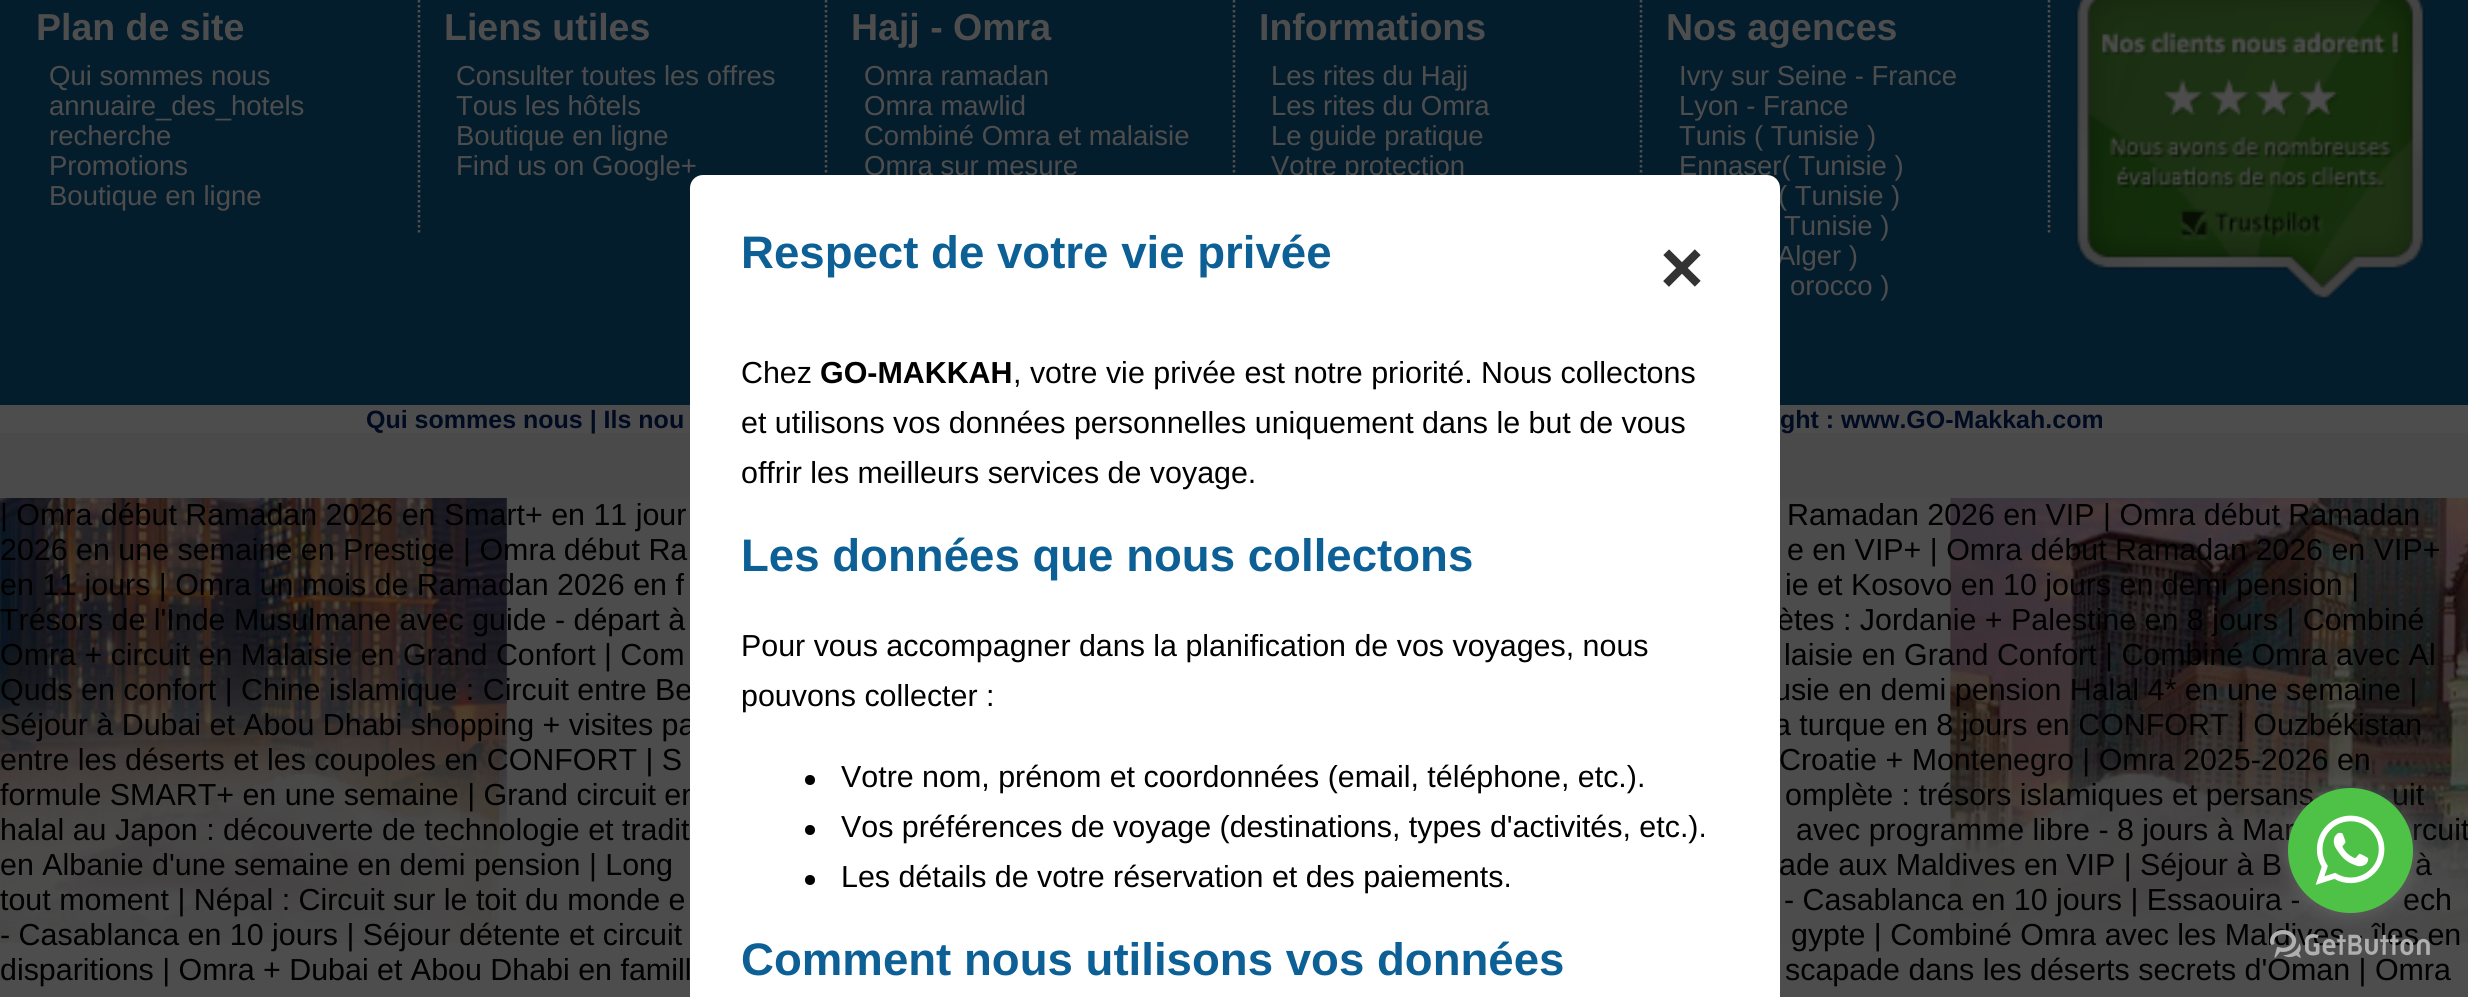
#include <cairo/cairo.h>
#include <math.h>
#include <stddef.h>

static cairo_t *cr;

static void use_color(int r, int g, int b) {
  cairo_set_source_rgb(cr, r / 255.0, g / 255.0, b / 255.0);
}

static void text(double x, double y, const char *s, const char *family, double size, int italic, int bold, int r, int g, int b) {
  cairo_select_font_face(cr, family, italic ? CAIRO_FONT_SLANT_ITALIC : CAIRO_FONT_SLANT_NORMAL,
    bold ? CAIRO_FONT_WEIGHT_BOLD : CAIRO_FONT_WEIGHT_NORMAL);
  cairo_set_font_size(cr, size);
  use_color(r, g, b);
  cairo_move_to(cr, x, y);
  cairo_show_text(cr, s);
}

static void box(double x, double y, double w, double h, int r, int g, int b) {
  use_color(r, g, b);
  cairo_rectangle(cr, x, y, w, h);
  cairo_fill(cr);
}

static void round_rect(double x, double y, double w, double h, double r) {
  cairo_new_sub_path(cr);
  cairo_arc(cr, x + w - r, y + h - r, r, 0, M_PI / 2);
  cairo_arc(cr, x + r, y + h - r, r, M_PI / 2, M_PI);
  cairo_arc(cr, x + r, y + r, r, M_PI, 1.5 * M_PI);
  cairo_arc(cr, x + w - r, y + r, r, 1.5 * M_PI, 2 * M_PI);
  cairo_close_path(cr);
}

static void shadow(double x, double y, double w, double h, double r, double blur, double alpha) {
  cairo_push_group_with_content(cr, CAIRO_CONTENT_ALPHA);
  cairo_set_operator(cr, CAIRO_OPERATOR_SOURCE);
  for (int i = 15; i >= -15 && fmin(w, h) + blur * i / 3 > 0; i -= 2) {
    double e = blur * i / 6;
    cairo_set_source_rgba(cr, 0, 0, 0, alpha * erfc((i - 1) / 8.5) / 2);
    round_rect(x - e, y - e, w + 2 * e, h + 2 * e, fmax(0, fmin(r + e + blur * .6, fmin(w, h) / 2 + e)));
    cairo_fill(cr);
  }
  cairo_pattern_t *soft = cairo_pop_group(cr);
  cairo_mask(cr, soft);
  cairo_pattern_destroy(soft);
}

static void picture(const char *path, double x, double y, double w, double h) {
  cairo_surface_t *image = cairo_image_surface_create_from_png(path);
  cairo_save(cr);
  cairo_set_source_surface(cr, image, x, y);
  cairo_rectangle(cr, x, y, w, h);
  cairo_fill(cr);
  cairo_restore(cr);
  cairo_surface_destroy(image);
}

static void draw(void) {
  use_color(77, 77, 77);
  cairo_paint(cr);
  picture("img_01.png", 0, 498, 2468, 445);
  box(0, 0, 2468, 405, 4, 29, 45);
  cairo_new_path(cr);
  cairo_move_to(cr, 419, -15);
  cairo_line_to(cr, 419, 235);
  use_color(77, 77, 77);
  cairo_set_line_width(cr, 2.5);
  cairo_set_dash(cr, (double[]){2.5, 2.5}, 2, 0);
  cairo_stroke(cr);
  cairo_new_path(cr);
  cairo_move_to(cr, 826, -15);
  cairo_line_to(cr, 826, 235);
  cairo_stroke(cr);
  cairo_new_path(cr);
  cairo_move_to(cr, 1234, -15);
  cairo_line_to(cr, 1234, 235);
  cairo_stroke(cr);
  cairo_new_path(cr);
  cairo_move_to(cr, 1641, -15);
  cairo_line_to(cr, 1641, 235);
  cairo_stroke(cr);
  cairo_new_path(cr);
  cairo_move_to(cr, 2049, -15);
  cairo_line_to(cr, 2049, 235);
  cairo_stroke(cr);
  picture("img_02.png", 2075, 0, 350, 301);
  box(0, 433, 2468, 65, 74, 74, 74);
  text(36, 40, "Plan de site", "Liberation Sans", 37.5, 0, 1, 77, 77, 77);
  text(49, 85, "Qui sommes nous", "Liberation Sans", 27.5, 0, 0, 77, 77, 77);
  text(49, 115, "annuaire_des_hotels", "Liberation Sans", 27.5, 0, 0, 77, 77, 77);
  text(49, 145, "recherche", "Liberation Sans", 27.5, 0, 0, 77, 77, 77);
  text(49, 175, "Promotions", "Liberation Sans", 27.5, 0, 0, 77, 77, 77);
  text(49, 205, "Boutique en ligne", "Liberation Sans", 27.5, 0, 0, 77, 77, 77);
  text(444, 40, "Liens utiles", "Liberation Sans", 37.5, 0, 1, 77, 77, 77);
  text(456, 85, "Consulter toutes les offres", "Liberation Sans", 27.5, 0, 0, 77, 77, 77);
  text(456, 115, "Tous les hôtels", "Liberation Sans", 27.5, 0, 0, 77, 77, 77);
  text(456, 145, "Boutique en ligne", "Liberation Sans", 27.5, 0, 0, 77, 77, 77);
  text(456, 175, "Find us on Google+", "Liberation Sans", 27.5, 0, 0, 77, 77, 77);
  text(851, 40, "Hajj - Omra", "Liberation Sans", 37.5, 0, 1, 77, 77, 77);
  text(864, 85, "Omra ramadan", "Liberation Sans", 27.5, 0, 0, 77, 77, 77);
  text(864, 115, "Omra mawlid", "Liberation Sans", 27.5, 0, 0, 77, 77, 77);
  text(864, 145, "Combiné Omra et malaisie", "Liberation Sans", 27.5, 0, 0, 77, 77, 77);
  text(864, 175, "Omra sur mesure", "Liberation Sans", 27.5, 0, 0, 77, 77, 77);
  text(1259, 40, "Informations", "Liberation Sans", 37.5, 0, 1, 77, 77, 77);
  text(1271, 85, "Les rites du Hajj", "Liberation Sans", 27.5, 0, 0, 77, 77, 77);
  text(1271, 115, "Les rites du Omra", "Liberation Sans", 27.5, 0, 0, 77, 77, 77);
  text(1271, 145, "Le guide pratique", "Liberation Sans", 27.5, 0, 0, 77, 77, 77);
  text(1271, 175, "Votre protection", "Liberation Sans", 27.5, 0, 0, 77, 77, 77);
  text(1666, 40, "Nos agences", "Liberation Sans", 37.5, 0, 1, 77, 77, 77);
  text(1679, 85, "Ivry sur Seine - France", "Liberation Sans", 27.5, 0, 0, 77, 77, 77);
  text(1679, 115, "Lyon - France", "Liberation Sans", 27.5, 0, 0, 77, 77, 77);
  text(1679, 145, "Tunis ( Tunisie )", "Liberation Sans", 27.5, 0, 0, 77, 77, 77);
  text(1679, 175, "Ennaser( Tunisie )", "Liberation Sans", 27.5, 0, 0, 77, 77, 77);
  text(1778, 205, "( Tunisie )", "Liberation Sans", 27.5, 0, 0, 77, 77, 77);
  text(1784, 235, "Tunisie )", "Liberation Sans", 27.5, 0, 0, 77, 77, 77);
  text(1777, 265, "Alger )", "Liberation Sans", 27.5, 0, 0, 77, 77, 77);
  text(1790, 295, "orocco )", "Liberation Sans", 27.5, 0, 0, 77, 77, 77);
  text(366, 428, "Qui sommes nous | Ils nou", "Liberation Sans", 25, 0, 1, 0, 11, 33);
  text(1780, 428, "ght : www.GO-Makkah.com", "Liberation Sans", 25, 0, 1, 0, 11, 33);
  text(0, 525, "| Omra début Ramadan 2026 en Smart+ en 11 jour", "Liberation Sans", 30.4, 0, 0, 0, 0, 0);
  text(1787, 525, "Ramadan 2026 en VIP | Omra début Ramadan", "Liberation Sans", 30.4, 0, 0, 0, 0, 0);
  text(0, 560, "2026 en une semaine en Prestige | Omra début Ra", "Liberation Sans", 30.4, 0, 0, 0, 0, 0);
  text(1787, 560, "e en VIP+ | Omra début Ramadan 2026 en VIP+", "Liberation Sans", 30.4, 0, 0, 0, 0, 0);
  text(0, 595, "en 11 jours | Omra un mois de Ramadan 2026 en f", "Liberation Sans", 30.4, 0, 0, 0, 0, 0);
  text(1785, 595, "ie et Kosovo en 10 jours en demi pension |", "Liberation Sans", 30.4, 0, 0, 0, 0, 0);
  text(0, 630, "Trésors de l'Inde Musulmane avec guide - départ à", "Liberation Sans", 30.4, 0, 0, 0, 0, 0);
  text(1777, 630, "ètes : Jordanie + Palestine en 8 jours | Combiné", "Liberation Sans", 30.4, 0, 0, 0, 0, 0);
  text(0, 665, "Omra + circuit en Malaisie en Grand Confort | Com", "Liberation Sans", 30.4, 0, 0, 0, 0, 0);
  text(1784, 665, "laisie en Grand Confort | Combiné Omra avec Al", "Liberation Sans", 30.4, 0, 0, 0, 0, 0);
  text(0, 700, "Quds en confort | Chine islamique : Circuit entre Be", "Liberation Sans", 30.4, 0, 0, 0, 0, 0);
  text(1774, 700, "usie en demi pension Halal 4* en une semaine |", "Liberation Sans", 30.4, 0, 0, 0, 0, 0);
  text(0, 735, "Séjour à Dubai et Abou Dhabi shopping + visites pa", "Liberation Sans", 30.4, 0, 0, 0, 0, 0);
  text(1774, 735, "a turque en 8 jours en CONFORT | Ouzbékistan", "Liberation Sans", 30.4, 0, 0, 0, 0, 0);
  text(0, 770, "entre les déserts et les coupoles en CONFORT | S", "Liberation Sans", 30.4, 0, 0, 0, 0, 0);
  text(1779, 770, "Croatie + Montenegro | Omra 2025-2026 en", "Liberation Sans", 30.4, 0, 0, 0, 0, 0);
  text(0, 805, "formule SMART+ en une semaine | Grand circuit en", "Liberation Sans", 30.4, 0, 0, 0, 0, 0);
  use_color(255, 255, 255);
  round_rect(690, 175, 1090, 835, 13);
  cairo_fill(cr);
  text(1660, 293, "×", "Liberation Sans", 75, 0, 1, 51, 51, 51);
  text(741, 975, "Comment nous utilisons vos données", "Liberation Sans", 45.6, 0, 1, 12, 96, 150);
  text(841, 887, "Les détails de votre réservation et des paiements.", "Liberation Sans", 30.4, 0, 0, 0, 0, 0);
  cairo_new_path(cr);
  cairo_arc(cr, 810, 880, 5, 0, 2 * M_PI);
  cairo_fill(cr);
  text(841, 837, "Vos préférences de voyage (destinations, types d'activités, etc.).", "Liberation Sans", 30.4, 0, 0, 0, 0, 0);
  cairo_new_path(cr);
  cairo_arc(cr, 810, 830, 5, 0, 2 * M_PI);
  cairo_fill(cr);
  text(841, 787, "Votre nom, prénom et coordonnées (email, téléphone, etc.).", "Liberation Sans", 30.4, 0, 0, 0, 0, 0);
  cairo_new_path(cr);
  cairo_arc(cr, 810, 780, 5, 0, 2 * M_PI);
  cairo_fill(cr);
  text(741, 706, "pouvons collecter :", "Liberation Sans", 30.4, 0, 0, 0, 0, 0);
  text(741, 656, "Pour vous accompagner dans la planification de vos voyages, nous", "Liberation Sans", 30.4, 0, 0, 0, 0, 0);
  text(741, 571, "Les données que nous collectons", "Liberation Sans", 45.6, 0, 1, 12, 96, 150);
  text(741, 483, "offrir les meilleurs services de voyage.", "Liberation Sans", 30.4, 0, 0, 0, 0, 0);
  text(741, 433, "et utilisons vos données personnelles uniquement dans le but de vous", "Liberation Sans", 30.4, 0, 0, 0, 0, 0);
  text(1013, 383, ", votre vie privée est notre priorité. Nous collectons", "Liberation Sans", 30.4, 0, 0, 0, 0, 0);
  text(820, 383, "GO-MAKKAH", "Liberation Sans", 30.4, 0, 1, 0, 0, 0);
  text(741, 383, "Chez", "Liberation Sans", 30.4, 0, 0, 0, 0, 0);
  text(741, 268, "Respect de votre vie privée", "Liberation Sans", 45.6, 0, 1, 12, 96, 150);
  text(1785, 805, "omplète : trésors islamiques et persans", "Liberation Sans", 30.4, 0, 0, 0, 0, 0);
  text(2392, 805, "uit", "Liberation Sans", 30.4, 0, 0, 0, 0, 0);
  text(0, 840, "halal au Japon : découverte de technologie et tradit", "Liberation Sans", 30.4, 0, 0, 0, 0, 0);
  text(1796, 840, "avec programme libre - 8 jours à Mar", "Liberation Sans", 30.4, 0, 0, 0, 0, 0);
  text(2412, 840, "rcuit", "Liberation Sans", 30.4, 0, 0, 0, 0, 0);
  text(0, 875, "en Albanie d'une semaine en demi pension | Long", "Liberation Sans", 30.4, 0, 0, 0, 0, 0);
  text(1779, 875, "ade aux Maldives en VIP | Séjour à B", "Liberation Sans", 30.4, 0, 0, 0, 0, 0);
  text(2415, 875, "à", "Liberation Sans", 30.4, 0, 0, 0, 0, 0);
  text(0, 910, "tout moment | Népal : Circuit sur le toit du monde e", "Liberation Sans", 30.4, 0, 0, 0, 0, 0);
  text(1784, 910, "- Casablanca en 10 jours | Essaouira -", "Liberation Sans", 30.4, 0, 0, 0, 0, 0);
  text(2403, 910, "ech", "Liberation Sans", 30.4, 0, 0, 0, 0, 0);
  text(0, 945, "- Casablanca en 10 jours | Séjour détente et circuit", "Liberation Sans", 30.4, 0, 0, 0, 0, 0);
  text(1791, 945, "gypte | Combiné Omra avec les Maldives - îles en", "Liberation Sans", 30.4, 0, 0, 0, 0, 0);
  text(0, 980, "disparitions | Omra + Dubai et Abou Dhabi en famill", "Liberation Sans", 30.4, 0, 0, 0, 0, 0);
  text(1785, 980, "scapade dans les déserts secrets d'Oman | Omra", "Liberation Sans", 30.4, 0, 0, 0, 0, 0);
  picture("img_04.png", 2270, 930, 160, 28);
  use_color(136, 136, 136);
  shadow(2288, 790, 125, 125, 62.5, 9, 0.4);
  use_color(77, 194, 71);
  cairo_arc(cr, 2350.5, 850.5, 62.5, 0, 2 * M_PI);
  cairo_fill(cr);
  picture("img_03.png", 2315, 815, 70, 70);
}

int main(void) {
  cairo_surface_t *surface = cairo_image_surface_create(CAIRO_FORMAT_RGB24, 2468, 997);
  cr = cairo_create(surface);
  cairo_font_options_t *options = cairo_font_options_create();
  cairo_font_options_set_hint_metrics(options, CAIRO_HINT_METRICS_OFF);
  cairo_font_options_set_hint_style(options, CAIRO_HINT_STYLE_NONE);
  cairo_set_font_options(cr, options);
  cairo_set_miter_limit(cr, 4);
  draw();
  cairo_surface_write_to_png(surface, "out.png");
  cairo_font_options_destroy(options);
  cairo_destroy(cr);
  cairo_surface_destroy(surface);
  return 0;
}
